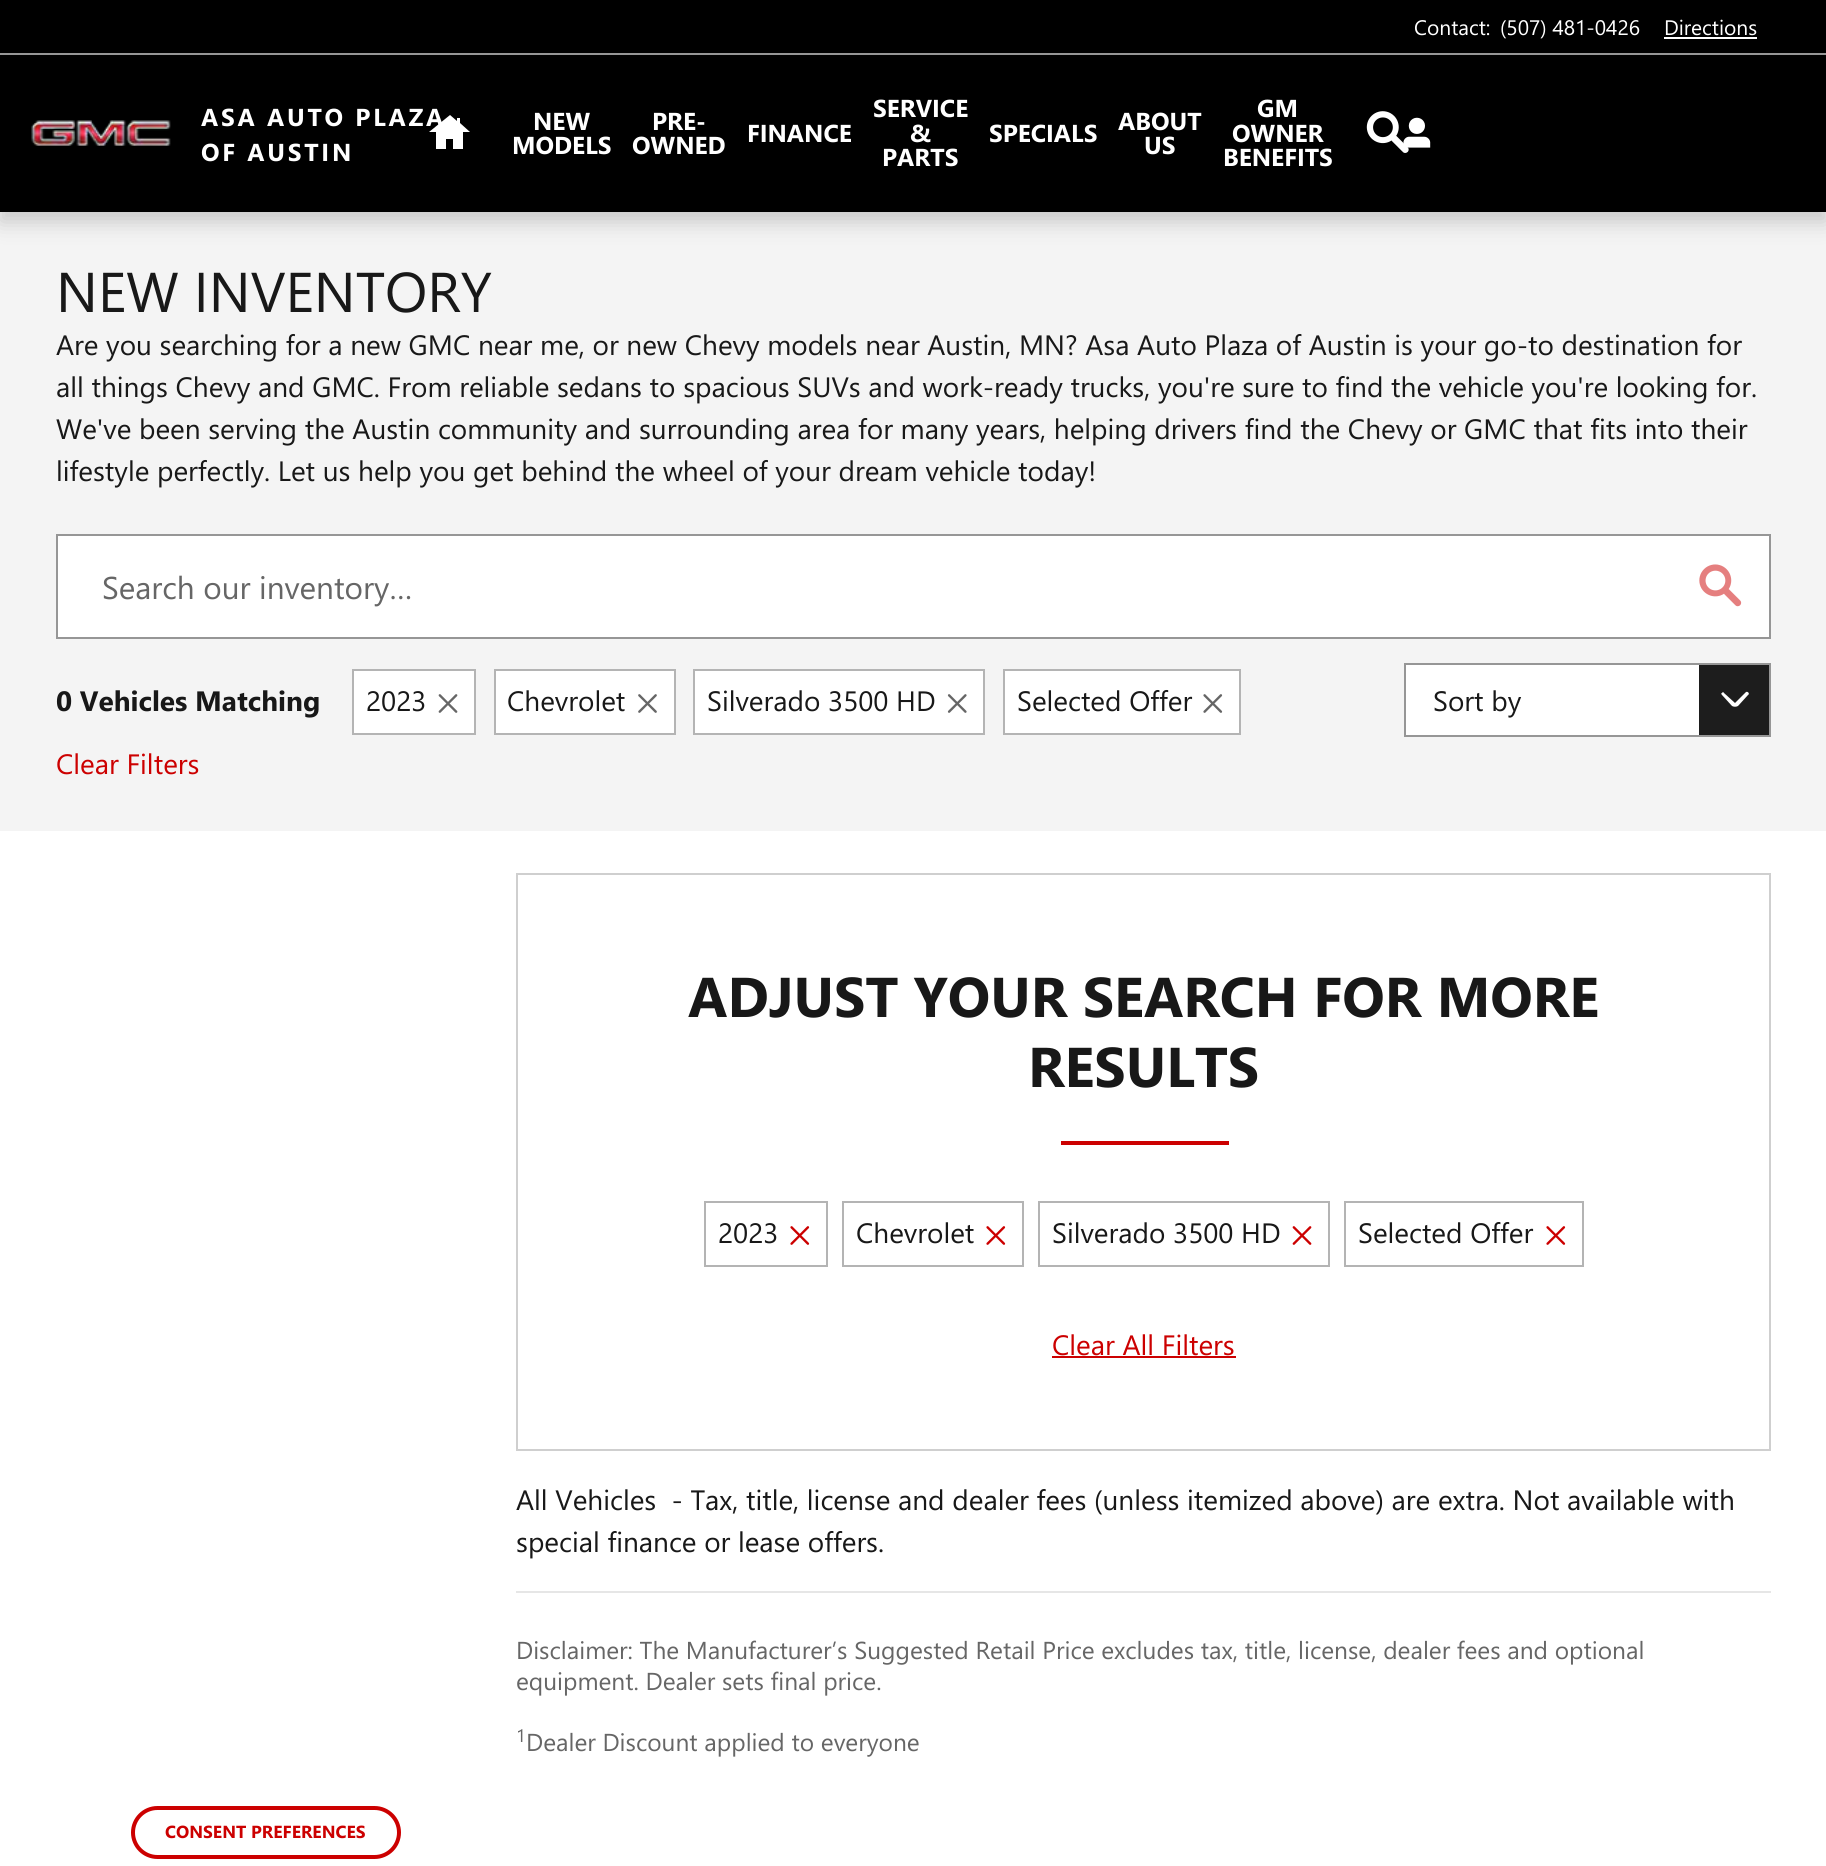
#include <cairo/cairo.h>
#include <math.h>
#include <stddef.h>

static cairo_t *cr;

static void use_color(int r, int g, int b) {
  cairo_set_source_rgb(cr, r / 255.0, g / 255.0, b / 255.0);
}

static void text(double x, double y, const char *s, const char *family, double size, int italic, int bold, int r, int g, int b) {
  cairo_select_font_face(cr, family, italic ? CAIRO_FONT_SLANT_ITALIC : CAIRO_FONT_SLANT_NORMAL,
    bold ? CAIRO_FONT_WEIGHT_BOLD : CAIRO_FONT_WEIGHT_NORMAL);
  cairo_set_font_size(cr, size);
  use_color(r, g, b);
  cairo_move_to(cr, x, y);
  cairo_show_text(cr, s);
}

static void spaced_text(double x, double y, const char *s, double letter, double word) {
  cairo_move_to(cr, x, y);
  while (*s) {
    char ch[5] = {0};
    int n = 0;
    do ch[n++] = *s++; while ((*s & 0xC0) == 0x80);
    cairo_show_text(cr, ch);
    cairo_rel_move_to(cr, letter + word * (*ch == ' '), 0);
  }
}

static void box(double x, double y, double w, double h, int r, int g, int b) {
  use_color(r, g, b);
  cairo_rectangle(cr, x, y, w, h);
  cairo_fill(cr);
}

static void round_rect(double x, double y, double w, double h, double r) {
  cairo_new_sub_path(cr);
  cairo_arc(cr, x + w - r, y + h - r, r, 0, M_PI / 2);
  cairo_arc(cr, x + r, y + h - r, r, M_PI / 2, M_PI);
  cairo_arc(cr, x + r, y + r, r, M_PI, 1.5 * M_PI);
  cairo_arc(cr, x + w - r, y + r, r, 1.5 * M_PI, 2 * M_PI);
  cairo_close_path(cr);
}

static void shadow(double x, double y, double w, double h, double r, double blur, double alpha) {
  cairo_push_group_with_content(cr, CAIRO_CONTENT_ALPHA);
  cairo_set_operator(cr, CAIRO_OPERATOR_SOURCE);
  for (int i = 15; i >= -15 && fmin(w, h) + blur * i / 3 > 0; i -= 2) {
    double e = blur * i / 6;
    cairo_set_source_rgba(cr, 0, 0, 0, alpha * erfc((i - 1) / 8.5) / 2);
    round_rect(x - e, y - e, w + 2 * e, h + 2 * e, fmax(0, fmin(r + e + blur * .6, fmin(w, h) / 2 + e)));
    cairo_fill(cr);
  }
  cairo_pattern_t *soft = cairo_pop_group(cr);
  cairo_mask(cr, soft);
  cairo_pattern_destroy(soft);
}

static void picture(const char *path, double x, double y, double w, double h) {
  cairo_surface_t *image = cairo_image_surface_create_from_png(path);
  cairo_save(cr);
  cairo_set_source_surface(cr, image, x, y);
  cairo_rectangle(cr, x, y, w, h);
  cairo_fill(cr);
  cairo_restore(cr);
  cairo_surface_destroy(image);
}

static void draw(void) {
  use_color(255, 255, 255);
  cairo_paint(cr);
  box(0, 212, 1826, 619, 244, 244, 244);
  use_color(0, 0, 0);
  shadow(0, 11, 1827, 211, 0, 10.5, 0.18);
  box(0, 0, 1826, 212, 0, 0, 0);
  box(0, 53, 1826, 2, 150, 150, 150);
  box(1664, 37, 93, 2, 255, 255, 255);
  picture("img_01.png", 31, 120, 140, 26);
  cairo_new_path(cr);
  cairo_move_to(cr, 460, 123);
  cairo_line_to(cr, 460, 118);
  cairo_line_to(cr, 457, 118);
  cairo_line_to(cr, 457, 121);
  cairo_line_to(cr, 450, 115);
  cairo_line_to(cr, 429, 132);
  cairo_line_to(cr, 436, 132);
  cairo_line_to(cr, 436, 149);
  cairo_line_to(cr, 446, 149);
  cairo_line_to(cr, 446, 139);
  cairo_line_to(cr, 453, 139);
  cairo_line_to(cr, 453, 149);
  cairo_line_to(cr, 463, 149);
  cairo_line_to(cr, 463, 132);
  cairo_line_to(cr, 470, 132);
  cairo_close_path(cr);
  cairo_fill(cr);
  picture("img_02.png", 1366, 111, 43, 42);
  picture("img_03.png", 1403, 117, 28, 31);
  cairo_rectangle(cr, 57, 535, 1713, 103);
  cairo_fill_preserve(cr);
  use_color(150, 150, 150);
  cairo_stroke(cr);
  picture("img_04.png", 1699, 564, 43, 43);
  use_color(255, 255, 255);
  cairo_rectangle(cr, 353, 670, 122, 64);
  cairo_fill_preserve(cr);
  use_color(180, 180, 180);
  cairo_stroke(cr);
  picture("img_05.png", 438, 694, 20, 19);
  use_color(255, 255, 255);
  cairo_rectangle(cr, 495, 670, 180, 64);
  cairo_fill_preserve(cr);
  use_color(180, 180, 180);
  cairo_stroke(cr);
  picture("img_06.png", 638, 694, 19, 19);
  use_color(255, 255, 255);
  cairo_rectangle(cr, 694, 670, 290, 64);
  cairo_fill_preserve(cr);
  use_color(180, 180, 180);
  cairo_stroke(cr);
  picture("img_07.png", 947, 694, 20, 19);
  use_color(255, 255, 255);
  cairo_rectangle(cr, 1004, 670, 236, 64);
  cairo_fill_preserve(cr);
  use_color(180, 180, 180);
  cairo_stroke(cr);
  picture("img_08.png", 1203, 694, 20, 19);
  box(1406, 665, 343, 70, 255, 255, 255);
  use_color(29, 29, 29);
  cairo_new_path(cr);
  cairo_move_to(cr, 1699, 665);
  cairo_line_to(cr, 1699, 735);
  cairo_line_to(cr, 1769, 735);
  cairo_line_to(cr, 1769, 665);
  cairo_close_path(cr);
  cairo_move_to(cr, 1748, 695);
  cairo_line_to(cr, 1738, 706);
  cairo_curve_to(cr, 1736, 707, 1734, 707, 1732, 706);
  cairo_line_to(cr, 1722, 695);
  cairo_curve_to(cr, 1721, 694, 1721, 693, 1722, 693);
  cairo_curve_to(cr, 1722, 692, 1724, 692, 1724, 693);
  cairo_line_to(cr, 1735, 703);
  cairo_line_to(cr, 1746, 692);
  cairo_curve_to(cr, 1748, 691, 1750, 694, 1748, 695);
  cairo_close_path(cr);
  cairo_fill(cr);
  cairo_rectangle(cr, 1405, 664, 365, 72);
  use_color(150, 150, 150);
  cairo_stroke(cr);
  cairo_rectangle(cr, 517, 874, 1253, 576);
  use_color(207, 207, 207);
  cairo_stroke(cr);
  box(1061, 1141, 168, 4, 204, 0, 0);
  cairo_rectangle(cr, 705, 1202, 122, 64);
  use_color(180, 180, 180);
  cairo_stroke(cr);
  picture("img_09.png", 790, 1226, 20, 19);
  cairo_rectangle(cr, 843, 1202, 180, 64);
  cairo_stroke(cr);
  picture("img_09.png", 986, 1226, 20, 19);
  cairo_rectangle(cr, 1039, 1202, 290, 64);
  cairo_stroke(cr);
  picture("img_10.png", 1292, 1226, 20, 19);
  cairo_rectangle(cr, 1345, 1202, 238, 64);
  cairo_stroke(cr);
  picture("img_09.png", 1546, 1226, 20, 19);
  box(1052, 1356, 184, 2, 204, 0, 0);
  box(516, 1591, 1255, 2, 230, 230, 230);
  round_rect(133, 1808, 266, 49, 24.5);
  use_color(204, 0, 0);
  cairo_set_line_width(cr, 4);
  cairo_stroke(cr);
  text(1414, 35, "Contact:", "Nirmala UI", 21, 0, 0, 255, 255, 255);
  text(1500, 35, "(507) 481-0426", "Nirmala UI", 21, 0, 0, 255, 255, 255);
  text(1664, 35, "Directions", "Nirmala UI", 21, 0, 0, 255, 255, 255);
  cairo_select_font_face(cr, "Nirmala UI", CAIRO_FONT_SLANT_NORMAL, CAIRO_FONT_WEIGHT_BOLD);
  cairo_set_font_size(cr, 24.5);
  spaced_text(201, 126, "ASA AUTO PLAZA", 2.75, 0);
  spaced_text(201, 161, "OF AUSTIN", 2.75, 0);
  text(533, 130, "NEW", "Nirmala UI", 24.5, 0, 1, 255, 255, 255);
  text(512, 154, "MODELS", "Nirmala UI", 24.5, 0, 1, 255, 255, 255);
  text(652, 130, "PRE-", "Nirmala UI", 24.5, 0, 1, 255, 255, 255);
  text(632, 154, "OWNED", "Nirmala UI", 24.5, 0, 1, 255, 255, 255);
  text(747, 142, "FINANCE", "Nirmala UI", 24.5, 0, 1, 255, 255, 255);
  text(873, 117, "SERVICE", "Nirmala UI", 24.5, 0, 1, 255, 255, 255);
  text(910, 142, "&", "Nirmala UI", 24.5, 0, 1, 255, 255, 255);
  text(882, 166, "PARTS", "Nirmala UI", 24.5, 0, 1, 255, 255, 255);
  text(989, 142, "SPECIALS", "Nirmala UI", 24.5, 0, 1, 255, 255, 255);
  text(1118, 130, "ABOUT", "Nirmala UI", 24.5, 0, 1, 255, 255, 255);
  text(1144, 154, "US", "Nirmala UI", 24.5, 0, 1, 255, 255, 255);
  text(1257, 117, "GM", "Nirmala UI", 24.5, 0, 1, 255, 255, 255);
  text(1232, 142, "OWNER", "Nirmala UI", 24.5, 0, 1, 255, 255, 255);
  text(1223, 166, "BENEFITS", "Nirmala UI", 24.5, 0, 1, 255, 255, 255);
  text(56, 312, "NEW INVENTORY", "Nirmala UI", 56, 0, 0, 24, 24, 24);
  text(56, 355, "Are you searching for a new GMC near me, or new Chevy models near Austin, MN? Asa Auto Plaza of Austin is your go-to destination for", "Nirmala UI", 28, 0, 0, 24, 24, 24);
  text(56, 397, "all things Chevy and GMC. From reliable sedans to spacious SUVs and work-ready trucks, you're sure to find the vehicle you're looking for.", "Nirmala UI", 28, 0, 0, 24, 24, 24);
  text(56, 439, "We've been serving the Austin community and surrounding area for many years, helping drivers find the Chevy or GMC that fits into their", "Nirmala UI", 28, 0, 0, 24, 24, 24);
  text(56, 481, "lifestyle perfectly. Let us help you get behind the wheel of your dream vehicle today!", "Nirmala UI", 28, 0, 0, 24, 24, 24);
  text(102, 599, "Search our inventory…", "Nirmala UI", 31.5, 0, 0, 102, 102, 102);
  text(56, 711, "0 Vehicles Matching", "Nirmala UI", 28, 0, 1, 24, 24, 24);
  text(366, 711, "2023", "Nirmala UI", 28, 0, 0, 24, 24, 24);
  text(507, 711, "Chevrolet", "Nirmala UI", 28, 0, 0, 24, 24, 24);
  text(707, 711, "Silverado 3500 HD", "Nirmala UI", 28, 0, 0, 24, 24, 24);
  text(1017, 711, "Selected Offer", "Nirmala UI", 28, 0, 0, 24, 24, 24);
  text(56, 774, "Clear Filters", "Nirmala UI", 28, 0, 0, 204, 0, 0);
  text(1433, 711, "Sort by", "Nirmala UI", 28, 0, 0, 24, 24, 24);
  text(688, 1017, "ADJUST YOUR SEARCH FOR MORE", "Nirmala UI", 56, 0, 1, 24, 24, 24);
  text(1028, 1087, "RESULTS", "Nirmala UI", 56, 0, 1, 24, 24, 24);
  text(718, 1243, "2023", "Nirmala UI", 28, 0, 0, 24, 24, 24);
  text(856, 1243, "Chevrolet", "Nirmala UI", 28, 0, 0, 24, 24, 24);
  text(1052, 1243, "Silverado 3500 HD", "Nirmala UI", 28, 0, 0, 24, 24, 24);
  text(1358, 1243, "Selected Offer", "Nirmala UI", 28, 0, 0, 24, 24, 24);
  text(1052, 1355, "Clear All Filters", "Nirmala UI", 28, 0, 0, 204, 0, 0);
  text(516, 1510, "All Vehicles  - Tax, title, license and dealer fees (unless itemized above) are extra. Not available with", "Nirmala UI", 28, 0, 0, 24, 24, 24);
  text(516, 1552, "special finance or lease offers.", "Nirmala UI", 28, 0, 0, 24, 24, 24);
  text(516, 1659, "Disclaimer: The Manufacturer’s Suggested Retail Price excludes tax, title, license, dealer fees and optional", "Nirmala UI", 24.5, 0, 0, 102, 102, 102);
  text(516, 1690, "equipment. Dealer sets final price.", "Nirmala UI", 24.5, 0, 0, 102, 102, 102);
  text(516, 1742, "1", "Nirmala UI", 18, 0, 0, 102, 102, 102);
  text(526, 1751, "Dealer Discount applied to everyone", "Nirmala UI", 24.5, 0, 0, 102, 102, 102);
  text(165, 1838, "CONSENT PREFERENCES", "Nirmala UI", 17.5, 0, 1, 204, 0, 0);
}

int main(void) {
  cairo_surface_t *surface = cairo_image_surface_create(CAIRO_FORMAT_RGB24, 1826, 1866);
  cr = cairo_create(surface);
  cairo_font_options_t *options = cairo_font_options_create();
  cairo_font_options_set_hint_metrics(options, CAIRO_HINT_METRICS_OFF);
  cairo_font_options_set_hint_style(options, CAIRO_HINT_STYLE_NONE);
  cairo_set_font_options(cr, options);
  cairo_set_miter_limit(cr, 4);
  draw();
  cairo_surface_write_to_png(surface, "out.png");
  cairo_font_options_destroy(options);
  cairo_destroy(cr);
  cairo_surface_destroy(surface);
  return 0;
}
